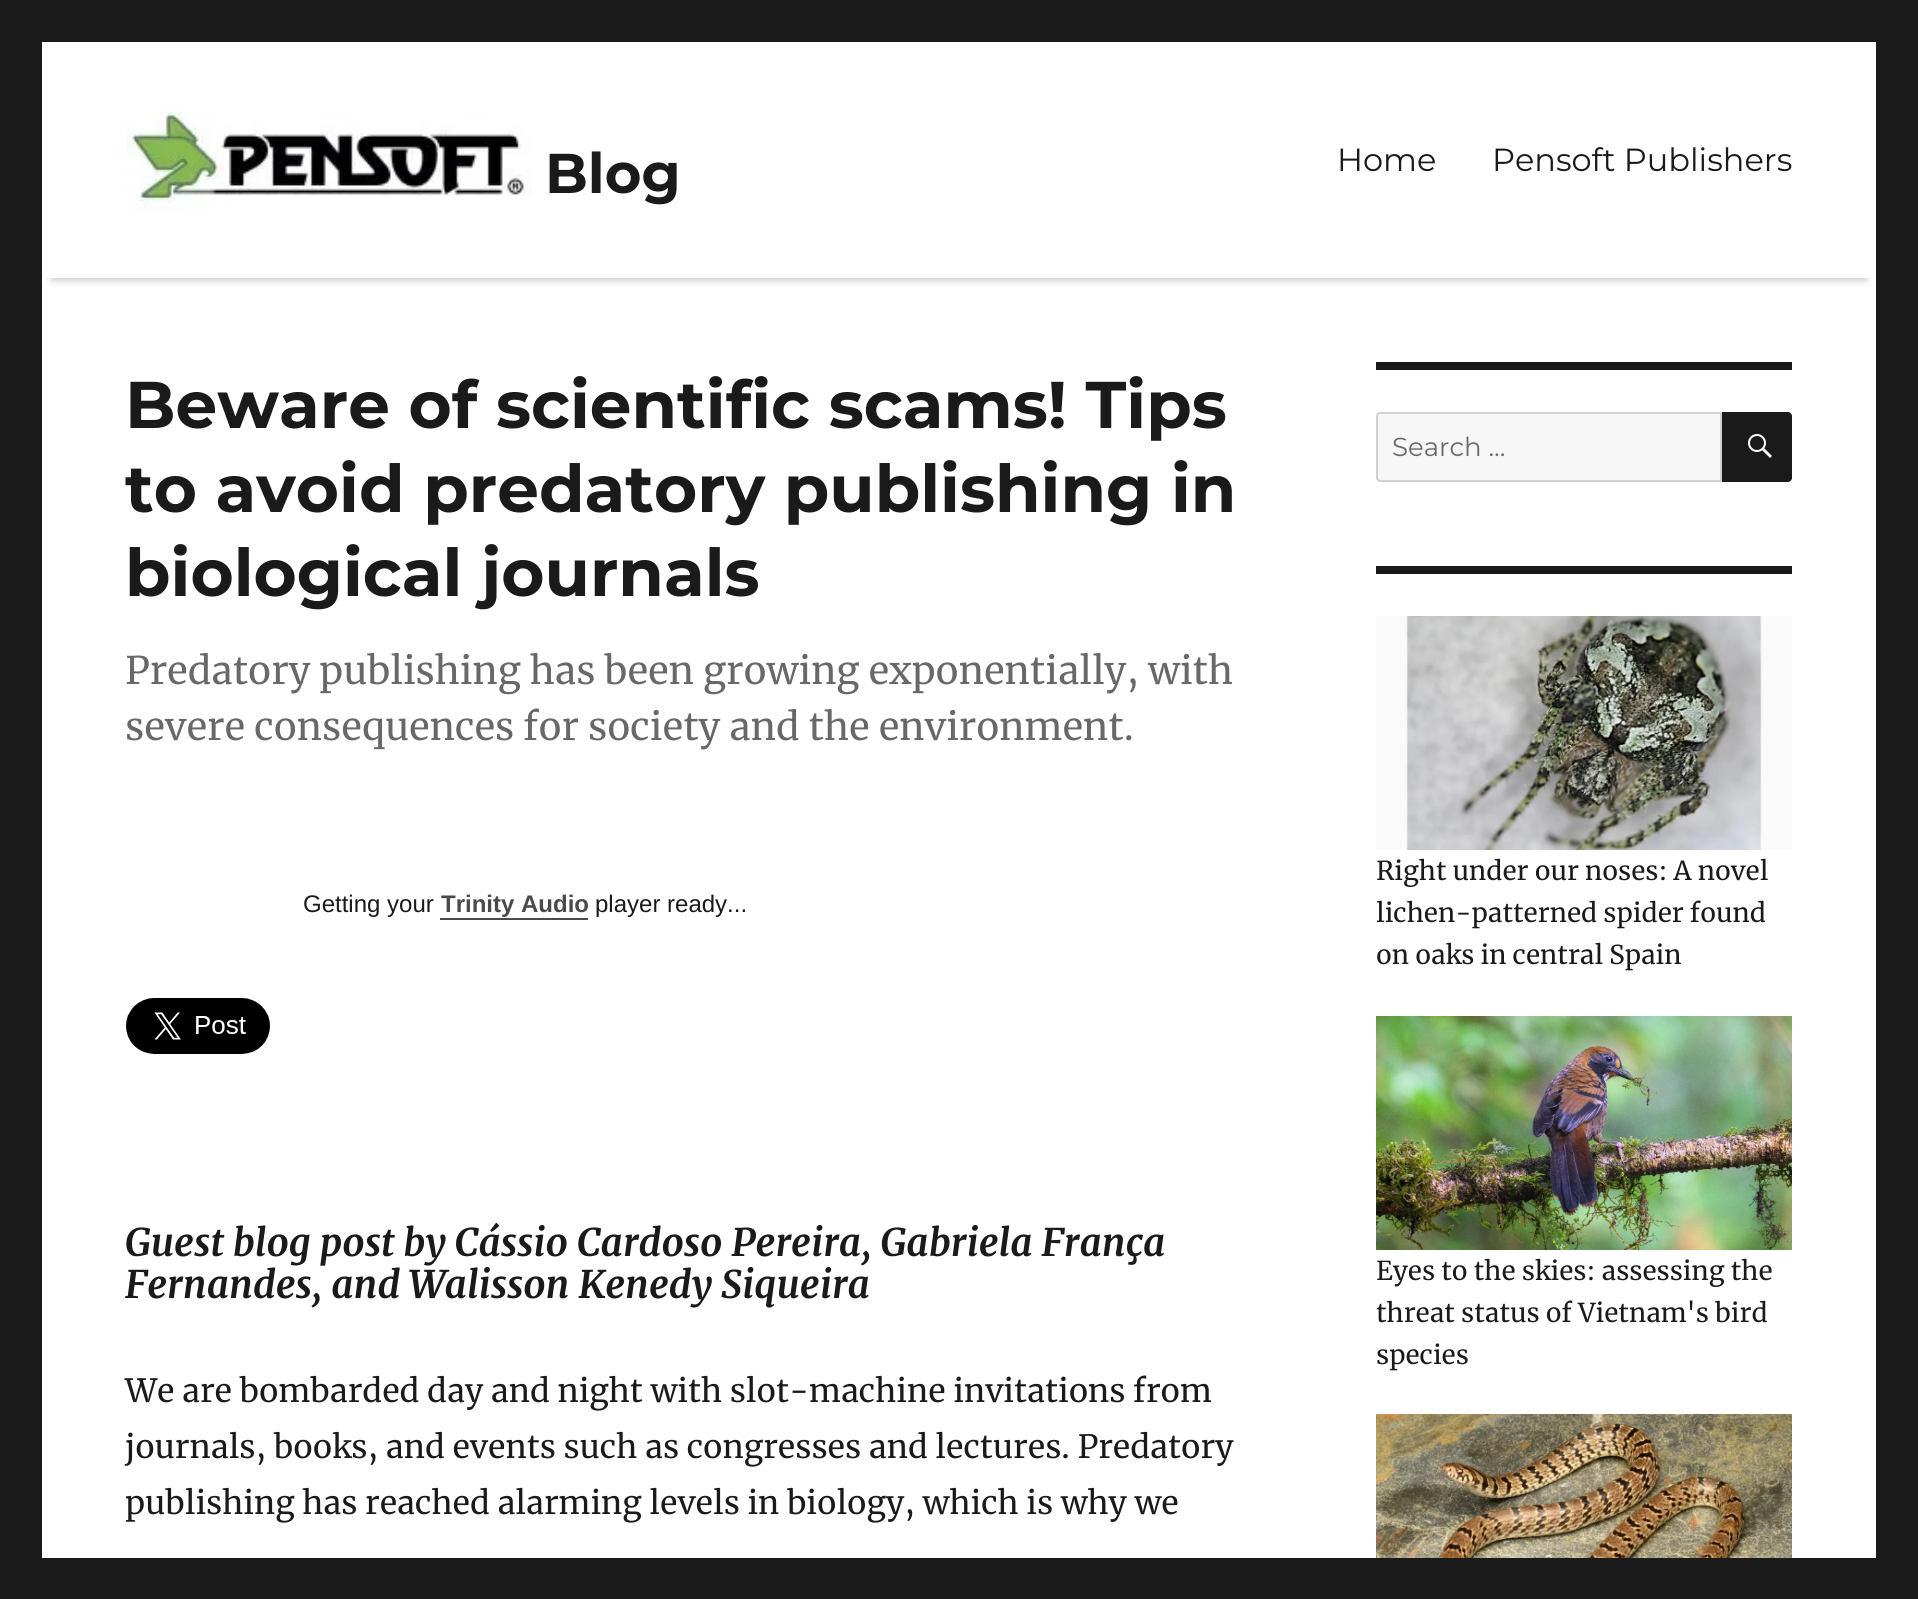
#include <cairo/cairo.h>
#include <math.h>
#include <stddef.h>

static cairo_t *cr;

static void use_color(int r, int g, int b) {
  cairo_set_source_rgb(cr, r / 255.0, g / 255.0, b / 255.0);
}

static void text(double x, double y, const char *s, const char *family, double size, int italic, int bold, int r, int g, int b) {
  cairo_select_font_face(cr, family, italic ? CAIRO_FONT_SLANT_ITALIC : CAIRO_FONT_SLANT_NORMAL,
    bold ? CAIRO_FONT_WEIGHT_BOLD : CAIRO_FONT_WEIGHT_NORMAL);
  cairo_set_font_size(cr, size);
  use_color(r, g, b);
  cairo_move_to(cr, x, y);
  cairo_show_text(cr, s);
}

static void box(double x, double y, double w, double h, int r, int g, int b) {
  use_color(r, g, b);
  cairo_rectangle(cr, x, y, w, h);
  cairo_fill(cr);
}

static void round_rect(double x, double y, double w, double h, double r) {
  cairo_new_sub_path(cr);
  cairo_arc(cr, x + w - r, y + h - r, r, 0, M_PI / 2);
  cairo_arc(cr, x + r, y + h - r, r, M_PI / 2, M_PI);
  cairo_arc(cr, x + r, y + r, r, M_PI, 1.5 * M_PI);
  cairo_arc(cr, x + w - r, y + r, r, 1.5 * M_PI, 2 * M_PI);
  cairo_close_path(cr);
}

static void shadow(double x, double y, double w, double h, double r, double blur, double alpha) {
  cairo_push_group_with_content(cr, CAIRO_CONTENT_ALPHA);
  cairo_set_operator(cr, CAIRO_OPERATOR_SOURCE);
  for (int i = 15; i >= -15 && fmin(w, h) + blur * i / 3 > 0; i -= 2) {
    double e = blur * i / 6;
    cairo_set_source_rgba(cr, 0, 0, 0, alpha * erfc((i - 1) / 8.5) / 2);
    round_rect(x - e, y - e, w + 2 * e, h + 2 * e, fmax(0, fmin(r + e + blur * .6, fmin(w, h) / 2 + e)));
    cairo_fill(cr);
  }
  cairo_pattern_t *soft = cairo_pop_group(cr);
  cairo_mask(cr, soft);
  cairo_pattern_destroy(soft);
}

static void picture(const char *path, double x, double y, double w, double h) {
  cairo_surface_t *image = cairo_image_surface_create_from_png(path);
  cairo_save(cr);
  cairo_set_source_surface(cr, image, x, y);
  cairo_rectangle(cr, x, y, w, h);
  cairo_fill(cr);
  cairo_restore(cr);
  cairo_surface_destroy(image);
}

static void draw(void) {
  use_color(26, 26, 26);
  cairo_paint(cr);
  box(42, 42, 1834, 1516, 255, 255, 255);
  cairo_save(cr);
  cairo_rectangle(cr, 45, 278, 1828, 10);
  cairo_clip(cr);
  use_color(197, 197, 197);
  shadow(52, 64, 1814, 216, 0, 4, 1);
  cairo_restore(cr);
  picture("img_01.png", 126, 111, 406, 101);
  box(440, 918, 148, 2, 75, 74, 74);
  picture("img_02.png", 126, 998, 144, 56);
  box(1376, 362, 416, 8, 26, 26, 26);
  use_color(247, 247, 247);
  cairo_new_path(cr);
  cairo_move_to(cr, 1380, 413);
  cairo_line_to(cr, 1721, 413);
  cairo_line_to(cr, 1721, 481);
  cairo_line_to(cr, 1380, 481);
  cairo_curve_to(cr, 1378.5, 481, 1377, 479.5, 1377, 478);
  cairo_line_to(cr, 1377, 416);
  cairo_curve_to(cr, 1377, 414.5, 1378.5, 413, 1380, 413);
  cairo_close_path(cr);
  cairo_fill_preserve(cr);
  use_color(209, 209, 209);
  cairo_stroke(cr);
  use_color(26, 26, 26);
  cairo_new_path(cr);
  cairo_move_to(cr, 1722, 412);
  cairo_line_to(cr, 1788, 412);
  cairo_curve_to(cr, 1790, 412, 1792, 414, 1792, 416);
  cairo_line_to(cr, 1792, 478);
  cairo_curve_to(cr, 1792, 480, 1790, 482, 1788, 482);
  cairo_line_to(cr, 1722, 482);
  cairo_close_path(cr);
  cairo_fill(cr);
  picture("img_03.png", 1748, 434, 24, 24);
  box(1376, 566, 416, 8, 26, 26, 26);
  picture("img_04.png", 1376, 616, 416, 234);
  picture("img_05.png", 1376, 1016, 416, 234);
  picture("img_06.png", 1376, 1414, 416, 144);
  text(545, 193, "Blog", "Montserrat Thin", 56, 0, 0, 26, 26, 26);
  text(1337, 171, "Home", "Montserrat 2 Thin", 32, 0, 0, 26, 26, 26);
  text(1492, 171, "Pensoft Publishers", "Montserrat 2 Thin", 32, 0, 0, 26, 26, 26);
  text(125, 428, "Beware of scientific scams! Tips", "Montserrat Thin", 66, 0, 0, 26, 26, 26);
  text(125, 512, "to avoid predatory publishing in", "Montserrat Thin", 66, 0, 0, 26, 26, 26);
  text(125, 596, "biological journals", "Montserrat Thin", 66, 0, 0, 26, 26, 26);
  text(125, 684, "Predatory publishing has been growing exponentially, with", "Merriweather", 38, 0, 0, 104, 104, 104);
  text(125, 740, "severe consequences for society and the environment.", "Merriweather", 38, 0, 0, 104, 104, 104);
  text(303, 912, "Getting your", "Liberation Sans", 24, 0, 0, 26, 26, 26);
  text(441, 912, "Trinity Audio", "Liberation Sans", 24, 0, 1, 75, 74, 74);
  text(595, 912, "player ready...", "Liberation Sans", 24, 0, 0, 26, 26, 26);
  text(125, 1256, "Guest blog post by Cássio Cardoso Pereira, Gabriela França", "Merriweather", 38, 1, 1, 26, 26, 26);
  text(125, 1298, "Fernandes, and Walisson Kenedy Siqueira", "Merriweather", 38, 1, 1, 26, 26, 26);
  text(125, 1402, "We are bombarded day and night with slot-machine invitations from", "Merriweather", 32, 0, 0, 26, 26, 26);
  text(125, 1458, "journals, books, and events such as congresses and lectures. Predatory", "Merriweather", 32, 0, 0, 26, 26, 26);
  text(125, 1514, "publishing has reached alarming levels in biology, which is why we", "Merriweather", 32, 0, 0, 26, 26, 26);
  text(1392, 456, "Search …", "Montserrat 2 Thin", 26, 0, 0, 104, 104, 104);
  text(1376, 880, "Right under our noses: A novel", "Merriweather", 26, 0, 0, 26, 26, 26);
  text(1376, 922, "lichen-patterned spider found", "Merriweather", 26, 0, 0, 26, 26, 26);
  text(1376, 964, "on oaks in central Spain", "Merriweather", 26, 0, 0, 26, 26, 26);
  text(1376, 1280, "Eyes to the skies: assessing the", "Merriweather", 26, 0, 0, 26, 26, 26);
  text(1376, 1322, "threat status of Vietnam's bird", "Merriweather", 26, 0, 0, 26, 26, 26);
  text(1376, 1364, "species", "Merriweather", 26, 0, 0, 26, 26, 26);
}

int main(void) {
  cairo_surface_t *surface = cairo_image_surface_create(CAIRO_FORMAT_RGB24, 1918, 1599);
  cr = cairo_create(surface);
  cairo_font_options_t *options = cairo_font_options_create();
  cairo_font_options_set_hint_metrics(options, CAIRO_HINT_METRICS_OFF);
  cairo_font_options_set_hint_style(options, CAIRO_HINT_STYLE_NONE);
  cairo_set_font_options(cr, options);
  cairo_set_miter_limit(cr, 4);
  draw();
  cairo_surface_write_to_png(surface, "out.png");
  cairo_font_options_destroy(options);
  cairo_destroy(cr);
  cairo_surface_destroy(surface);
  return 0;
}
